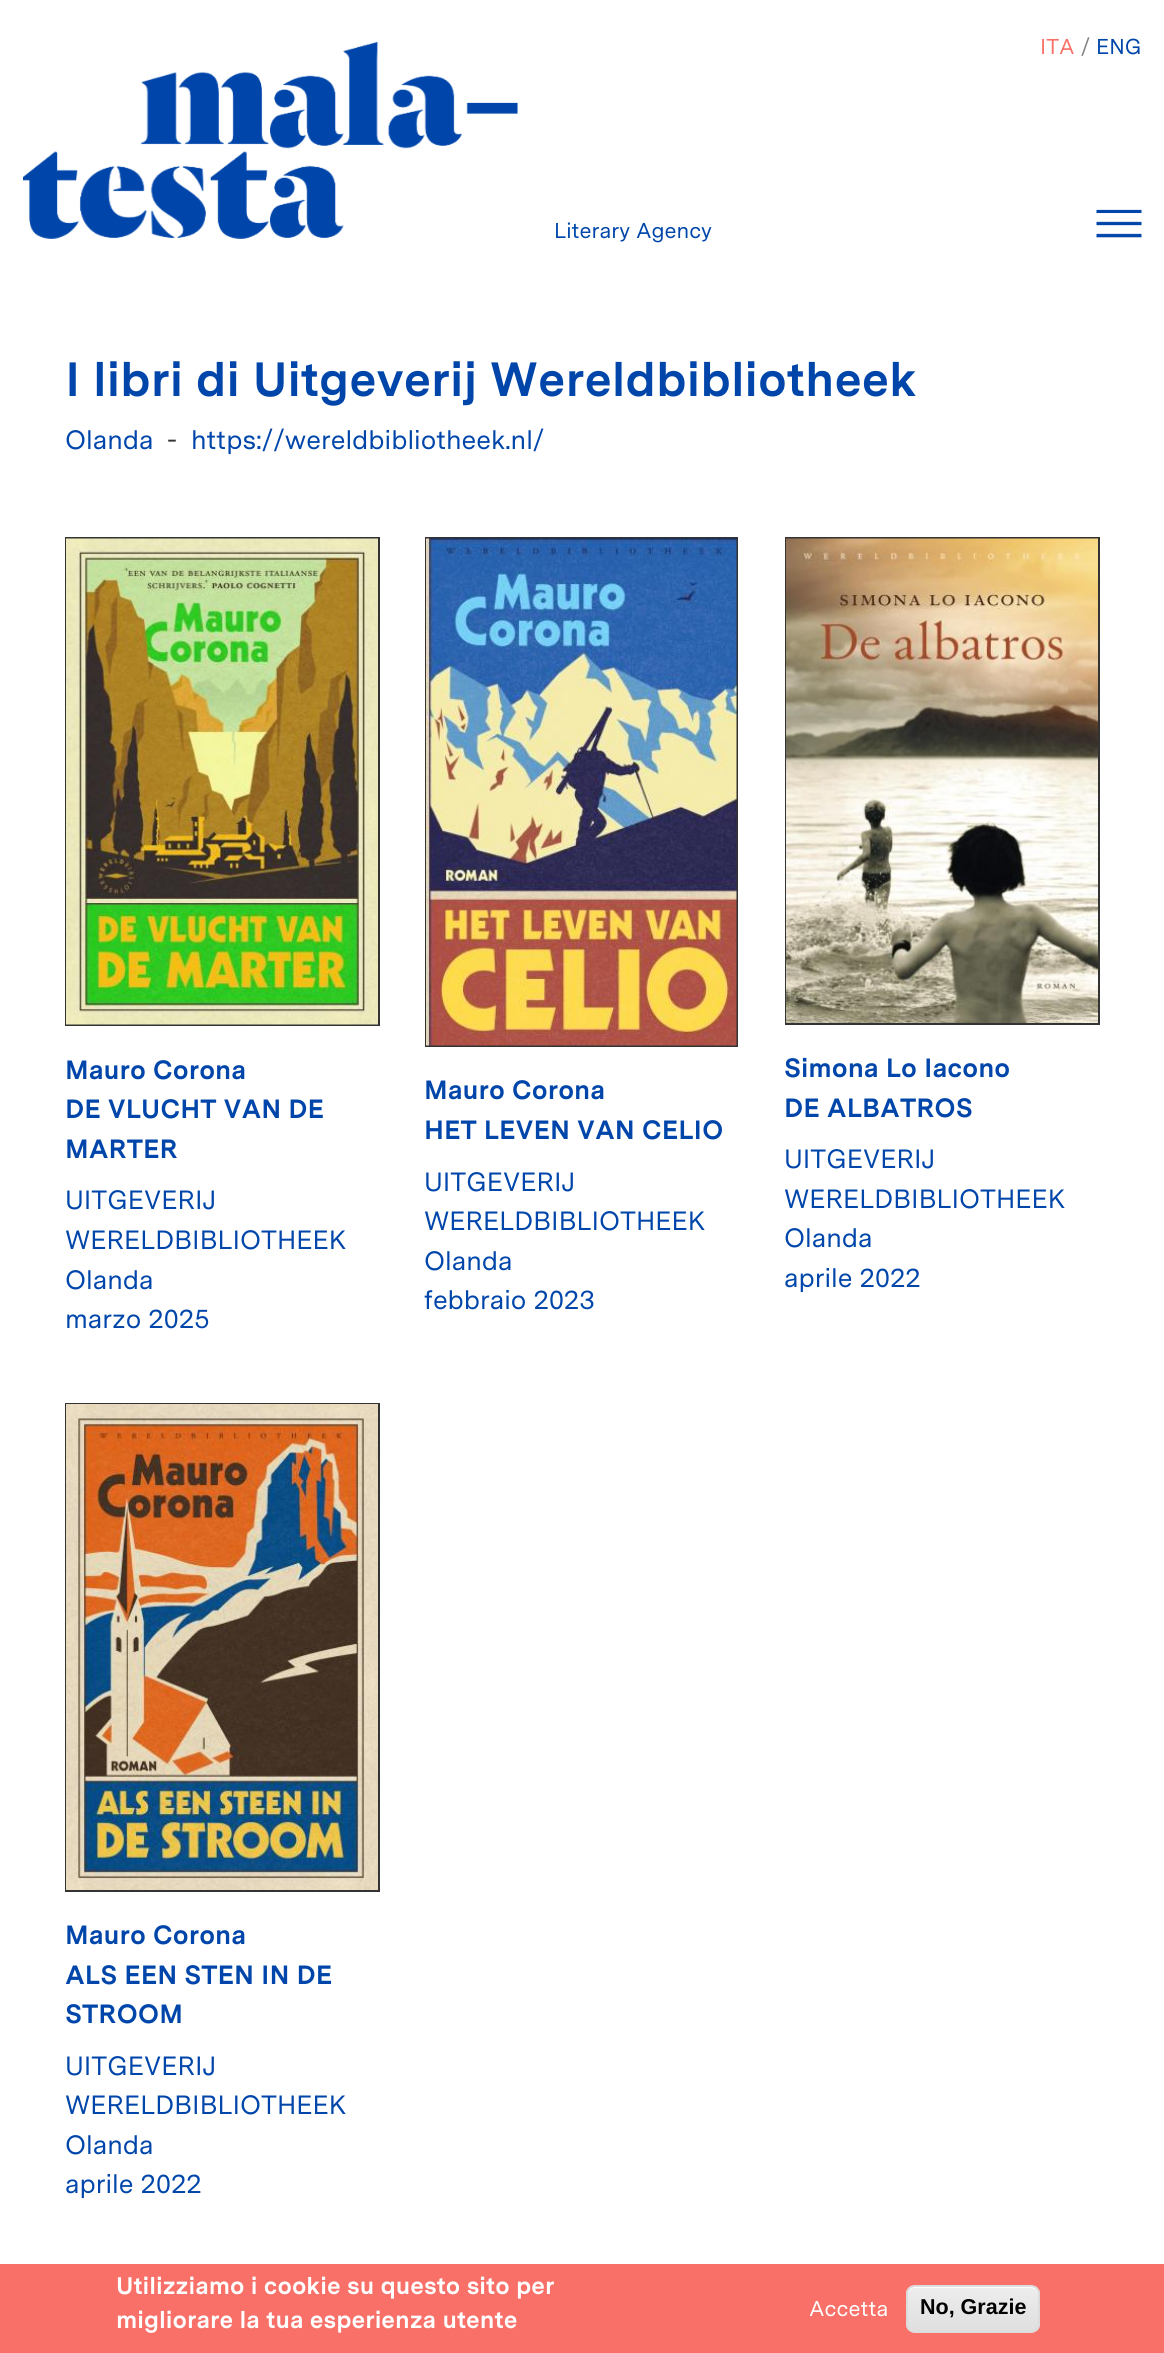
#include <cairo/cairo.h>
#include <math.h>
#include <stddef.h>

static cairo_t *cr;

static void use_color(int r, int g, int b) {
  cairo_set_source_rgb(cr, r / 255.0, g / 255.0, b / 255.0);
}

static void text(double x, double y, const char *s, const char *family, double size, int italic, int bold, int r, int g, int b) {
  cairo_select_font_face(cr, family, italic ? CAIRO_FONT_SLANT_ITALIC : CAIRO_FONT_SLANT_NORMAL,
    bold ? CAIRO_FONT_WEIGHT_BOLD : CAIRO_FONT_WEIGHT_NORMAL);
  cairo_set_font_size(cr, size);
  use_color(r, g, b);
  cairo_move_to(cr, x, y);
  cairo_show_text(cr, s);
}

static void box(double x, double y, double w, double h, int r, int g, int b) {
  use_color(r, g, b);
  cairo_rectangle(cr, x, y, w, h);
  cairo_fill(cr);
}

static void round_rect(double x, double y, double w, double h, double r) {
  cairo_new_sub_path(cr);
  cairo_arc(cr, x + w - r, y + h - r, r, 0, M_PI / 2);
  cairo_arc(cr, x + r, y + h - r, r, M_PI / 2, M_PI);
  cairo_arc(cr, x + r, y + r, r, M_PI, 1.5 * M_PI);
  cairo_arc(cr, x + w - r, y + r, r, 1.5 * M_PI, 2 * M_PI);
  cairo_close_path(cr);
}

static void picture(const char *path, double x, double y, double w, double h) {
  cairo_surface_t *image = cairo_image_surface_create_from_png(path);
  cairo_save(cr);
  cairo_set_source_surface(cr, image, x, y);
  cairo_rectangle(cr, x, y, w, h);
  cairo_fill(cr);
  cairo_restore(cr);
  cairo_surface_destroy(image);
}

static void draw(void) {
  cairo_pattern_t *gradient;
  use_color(255, 255, 255);
  cairo_paint(cr);
  picture("img_01.png", 1096, 209, 46, 29);
  picture("img_02.png", 23, 41, 495, 198);
  cairo_rectangle(cr, 66, 538, 313, 487);
  use_color(51, 51, 51);
  cairo_stroke(cr);
  picture("img_03.png", 66, 538, 312, 487);
  cairo_rectangle(cr, 426, 538, 311, 508);
  cairo_stroke(cr);
  picture("img_04.png", 426, 538, 311, 508);
  cairo_rectangle(cr, 786, 538, 313, 486);
  cairo_stroke(cr);
  picture("img_05.png", 786, 538, 312, 485);
  cairo_rectangle(cr, 66, 1404, 313, 487);
  cairo_stroke(cr);
  picture("img_06.png", 66, 1404, 312, 486);
  box(0, 2264, 1164, 89, 248, 112, 104);
  cairo_save(cr);
  round_rect(906, 2285, 134, 48, 9);
  cairo_clip(cr);
  gradient = cairo_pattern_create_linear(973, 2286, 973, 2331);
  cairo_pattern_add_color_stop_rgba(gradient, 0.05, 0.929, 0.929, 0.929, 1);
  cairo_pattern_add_color_stop_rgba(gradient, 1, 0.875, 0.875, 0.875, 1);
  cairo_set_source(cr, gradient);
  cairo_pattern_destroy(gradient);
  cairo_rectangle(cr, 906, 2286, 134, 45);
  cairo_fill(cr);
  cairo_restore(cr);
  use_color(255, 255, 255);
  cairo_new_path(cr);
  cairo_move_to(cr, 915, 2288);
  cairo_line_to(cr, 1030, 2288);
  cairo_curve_to(cr, 1035, 2288, 1038, 2291, 1038, 2295);
  cairo_curve_to(cr, 1038, 2281, 1019, 2286, 1011, 2286);
  cairo_line_to(cr, 935, 2286);
  cairo_curve_to(cr, 927, 2286, 908, 2281, 908, 2295);
  cairo_curve_to(cr, 908, 2291, 911, 2288, 915, 2288);
  cairo_close_path(cr);
  cairo_fill(cr);
  round_rect(907, 2286, 132, 46, 8);
  use_color(220, 220, 220);
  cairo_stroke(cr);
  text(1040, 54, "ITA", "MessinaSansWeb", 21.5, 0, 0, 248, 112, 104);
  text(1081, 54, "/", "MessinaSansWeb", 21.5, 0, 0, 128, 128, 128);
  text(1096, 54, "ENG", "MessinaSansWeb", 21.5, 0, 0, 0, 70, 170);
  text(554, 238, "Literary Agency", "MessinaSansWeb", 21.5, 0, 0, 0, 70, 170);
  text(65, 396, "I libri di Uitgeverij Wereldbibliotheek", "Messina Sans", 48, 0, 1, 0, 70, 170);
  text(65, 449, "Olanda", "MessinaSansWeb", 26.4, 0, 0, 0, 70, 170);
  text(167, 449, "-", "MessinaSansWeb", 26.4, 0, 0, 51, 51, 51);
  text(191, 449, "https://wereldbibliotheek.nl/", "MessinaSansWeb", 26.4, 0, 0, 0, 70, 170);
  text(65, 1079, "Mauro Corona", "Messina Sans", 26.4, 0, 1, 0, 70, 170);
  text(65, 1118, "DE VLUCHT VAN DE", "Messina Sans", 26.4, 0, 1, 0, 70, 170);
  text(65, 1158, "MARTER", "Messina Sans", 26.4, 0, 1, 0, 70, 170);
  text(65, 1209, "UITGEVERIJ", "MessinaSansWeb", 26.4, 0, 0, 0, 70, 170);
  text(65, 1249, "WERELDBIBLIOTHEEK", "MessinaSansWeb", 26.4, 0, 0, 0, 70, 170);
  text(65, 1289, "Olanda", "MessinaSansWeb", 26.4, 0, 0, 0, 70, 170);
  text(65, 1328, "marzo 2025", "MessinaSansWeb", 26.4, 0, 0, 0, 70, 170);
  text(424, 1099, "Mauro Corona", "Messina Sans", 26.4, 0, 1, 0, 70, 170);
  text(424, 1139, "HET LEVEN VAN CELIO", "Messina Sans", 26.4, 0, 1, 0, 70, 170);
  text(424, 1191, "UITGEVERIJ", "MessinaSansWeb", 26.4, 0, 0, 0, 70, 170);
  text(424, 1230, "WERELDBIBLIOTHEEK", "MessinaSansWeb", 26.4, 0, 0, 0, 70, 170);
  text(424, 1270, "Olanda", "MessinaSansWeb", 26.4, 0, 0, 0, 70, 170);
  text(424, 1309, "febbraio 2023", "MessinaSansWeb", 26.4, 0, 0, 0, 70, 170);
  text(784, 1077, "Simona Lo Iacono", "Messina Sans", 26.4, 0, 1, 0, 70, 170);
  text(784, 1117, "DE ALBATROS", "Messina Sans", 26.4, 0, 1, 0, 70, 170);
  text(784, 1168, "UITGEVERIJ", "MessinaSansWeb", 26.4, 0, 0, 0, 70, 170);
  text(784, 1208, "WERELDBIBLIOTHEEK", "MessinaSansWeb", 26.4, 0, 0, 0, 70, 170);
  text(784, 1247, "Olanda", "MessinaSansWeb", 26.4, 0, 0, 0, 70, 170);
  text(784, 1287, "aprile 2022", "MessinaSansWeb", 26.4, 0, 0, 0, 70, 170);
  text(65, 1944, "Mauro Corona", "Messina Sans", 26.4, 0, 1, 0, 70, 170);
  text(65, 1984, "ALS EEN STEN IN DE", "Messina Sans", 26.4, 0, 1, 0, 70, 170);
  text(65, 2023, "STROOM", "Messina Sans", 26.4, 0, 1, 0, 70, 170);
  text(65, 2075, "UITGEVERIJ", "MessinaSansWeb", 26.4, 0, 0, 0, 70, 170);
  text(65, 2114, "WERELDBIBLIOTHEEK", "MessinaSansWeb", 26.4, 0, 0, 0, 70, 170);
  text(65, 2154, "Olanda", "MessinaSansWeb", 26.4, 0, 0, 0, 70, 170);
  text(65, 2193, "aprile 2022", "MessinaSansWeb", 26.4, 0, 0, 0, 70, 170);
  text(116, 2294, "Utilizziamo i cookie su questo sito per", "Messina Sans", 24, 0, 1, 255, 255, 255);
  text(116, 2328, "migliorare la tua esperienza utente", "Messina Sans", 24, 0, 1, 255, 255, 255);
  text(809, 2316, "Accetta", "MessinaSansWeb", 21.5, 0, 0, 255, 255, 255);
  text(920, 2314, "No, Grazie", "Liberation Sans", 21.5, 0, 1, 0, 0, 0);
}

int main(void) {
  cairo_surface_t *surface = cairo_image_surface_create(CAIRO_FORMAT_RGB24, 1164, 2353);
  cr = cairo_create(surface);
  cairo_font_options_t *options = cairo_font_options_create();
  cairo_font_options_set_hint_metrics(options, CAIRO_HINT_METRICS_OFF);
  cairo_font_options_set_hint_style(options, CAIRO_HINT_STYLE_NONE);
  cairo_set_font_options(cr, options);
  cairo_set_miter_limit(cr, 4);
  draw();
  cairo_surface_write_to_png(surface, "out.png");
  cairo_font_options_destroy(options);
  cairo_destroy(cr);
  cairo_surface_destroy(surface);
  return 0;
}
